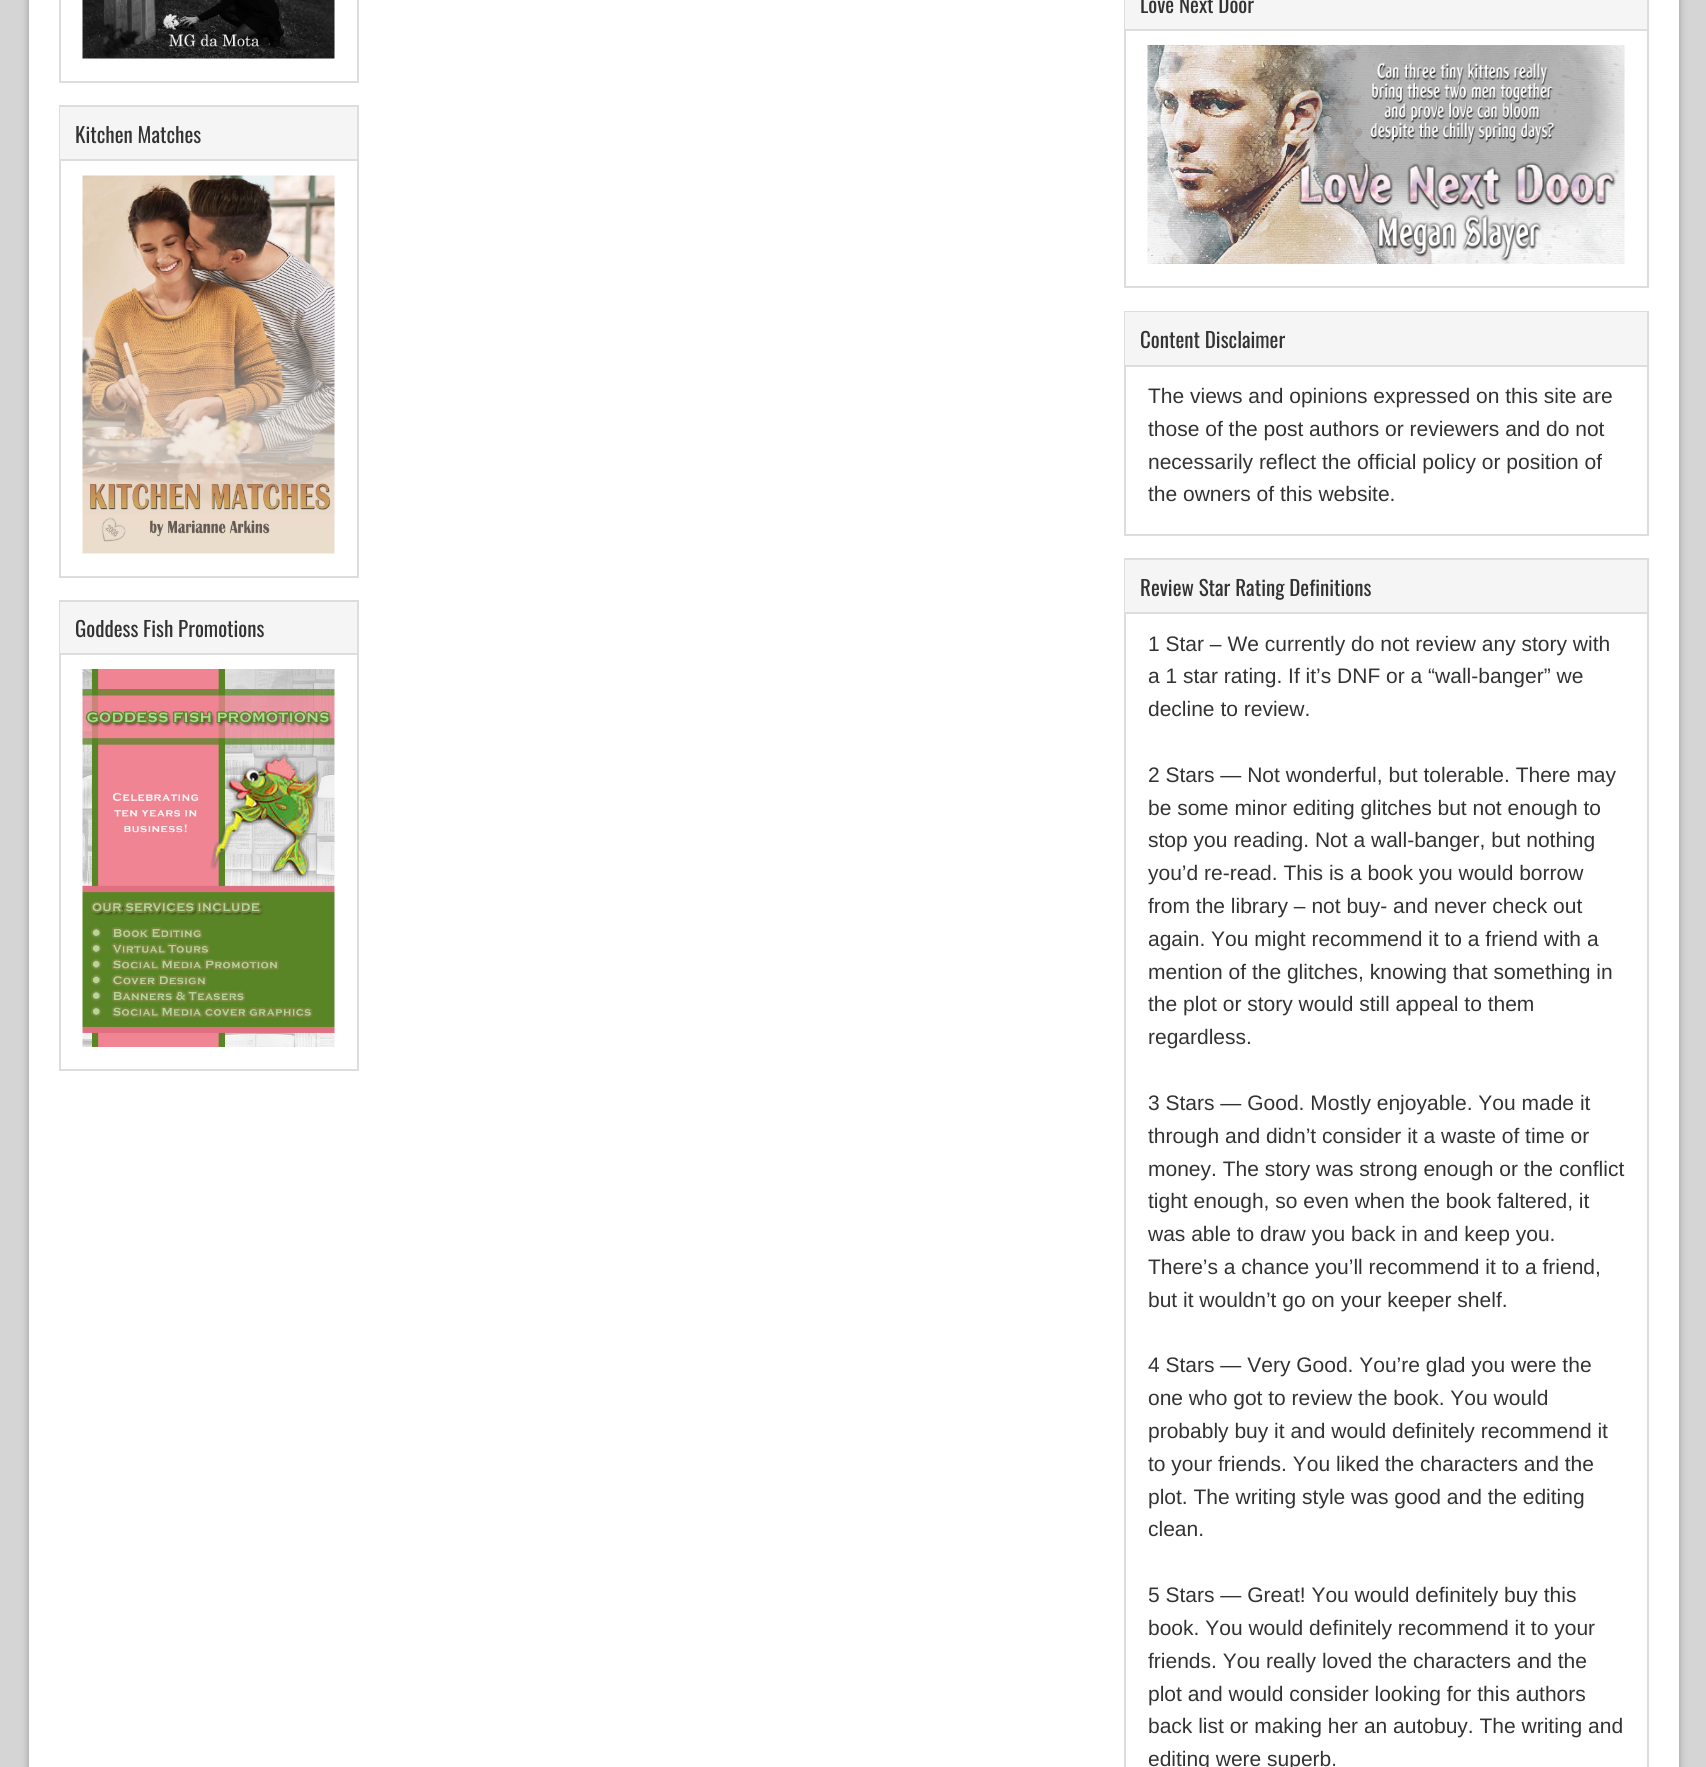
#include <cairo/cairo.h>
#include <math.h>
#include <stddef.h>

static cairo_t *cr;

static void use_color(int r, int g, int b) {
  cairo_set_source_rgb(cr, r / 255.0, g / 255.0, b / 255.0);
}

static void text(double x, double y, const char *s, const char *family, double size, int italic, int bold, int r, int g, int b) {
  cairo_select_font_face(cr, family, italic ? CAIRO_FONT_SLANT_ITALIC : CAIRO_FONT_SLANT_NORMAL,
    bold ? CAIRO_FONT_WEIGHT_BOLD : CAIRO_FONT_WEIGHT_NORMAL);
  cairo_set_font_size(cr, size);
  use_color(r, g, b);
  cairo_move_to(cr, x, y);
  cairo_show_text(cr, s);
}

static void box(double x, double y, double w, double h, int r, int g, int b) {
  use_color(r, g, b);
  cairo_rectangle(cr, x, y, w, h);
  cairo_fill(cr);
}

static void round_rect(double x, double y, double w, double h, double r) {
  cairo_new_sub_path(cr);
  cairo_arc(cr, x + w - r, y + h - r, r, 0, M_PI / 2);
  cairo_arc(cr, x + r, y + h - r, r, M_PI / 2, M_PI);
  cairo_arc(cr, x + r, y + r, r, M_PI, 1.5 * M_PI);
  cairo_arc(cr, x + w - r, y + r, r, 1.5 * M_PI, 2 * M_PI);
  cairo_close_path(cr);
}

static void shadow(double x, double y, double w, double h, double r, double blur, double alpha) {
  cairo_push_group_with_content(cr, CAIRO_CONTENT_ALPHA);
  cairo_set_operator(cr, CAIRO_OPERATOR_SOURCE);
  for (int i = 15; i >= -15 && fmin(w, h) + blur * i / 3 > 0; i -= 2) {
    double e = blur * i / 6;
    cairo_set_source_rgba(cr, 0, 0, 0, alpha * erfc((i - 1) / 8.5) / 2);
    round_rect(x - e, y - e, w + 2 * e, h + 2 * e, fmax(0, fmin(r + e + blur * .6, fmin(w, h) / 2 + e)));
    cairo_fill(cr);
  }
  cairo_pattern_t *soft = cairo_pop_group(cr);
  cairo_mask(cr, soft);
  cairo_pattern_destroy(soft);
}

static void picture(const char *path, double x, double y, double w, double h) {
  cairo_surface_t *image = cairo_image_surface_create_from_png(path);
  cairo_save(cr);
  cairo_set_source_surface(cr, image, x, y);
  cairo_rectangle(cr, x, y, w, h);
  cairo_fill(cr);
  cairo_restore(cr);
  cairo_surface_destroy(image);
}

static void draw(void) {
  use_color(213, 213, 213);
  cairo_paint(cr);
  use_color(153, 153, 153);
  shadow(29, -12, 1650, 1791, 0, 4, 1);
  box(29, 0, 1650, 1767, 255, 255, 255);
  cairo_rectangle(cr, 60, -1, 298, 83);
  use_color(221, 221, 221);
  cairo_stroke(cr);
  picture("img_01.png", 82, 0, 253, 59);
  cairo_rectangle(cr, 60, 106, 298, 471);
  cairo_stroke(cr);
  box(60, 107, 297, 52, 245, 245, 245);
  box(60, 159, 297, 2, 221, 221, 221);
  picture("img_02.png", 82, 175, 253, 379);
  cairo_rectangle(cr, 60, 601, 298, 469);
  cairo_stroke(cr);
  box(60, 602, 297, 51, 245, 245, 245);
  box(60, 653, 297, 2, 221, 221, 221);
  picture("img_03.png", 82, 669, 253, 378);
  cairo_rectangle(cr, 1125, -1, 523, 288);
  cairo_stroke(cr);
  box(1125, 0, 522, 29, 245, 245, 245);
  box(1125, 29, 522, 2, 221, 221, 221);
  picture("img_04.png", 1147, 45, 478, 219);
  cairo_rectangle(cr, 1125, 312, 523, 223);
  cairo_stroke(cr);
  box(1125, 312, 522, 53, 245, 245, 245);
  box(1125, 365, 522, 2, 221, 221, 221);
  cairo_rectangle(cr, 1125, 559, 523, 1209);
  cairo_stroke(cr);
  box(1125, 560, 522, 52, 245, 245, 245);
  box(1125, 612, 522, 2, 221, 221, 221);
  text(75, 143, "Kitchen Matches", "Oswald", 21, 0, 0, 51, 51, 51);
  text(75, 637, "Goddess Fish Promotions", "Oswald", 21, 0, 0, 51, 51, 51);
  text(1140, 13, "Love Next Door", "Oswald", 21, 0, 0, 51, 51, 51);
  text(1140, 348, "Content Disclaimer", "Oswald", 21, 0, 0, 51, 51, 51);
  text(1148, 403, "The views and opinions expressed on this site are", "Liberation Sans", 21, 0, 0, 51, 51, 51);
  text(1148, 436, "those of the post authors or reviewers and do not", "Liberation Sans", 21, 0, 0, 51, 51, 51);
  text(1148, 469, "necessarily reflect the official policy or position of", "Liberation Sans", 21, 0, 0, 51, 51, 51);
  text(1148, 501, "the owners of this website.", "Liberation Sans", 21, 0, 0, 51, 51, 51);
  text(1140, 596, "Review Star Rating Definitions", "Oswald", 21, 0, 0, 51, 51, 51);
  text(1148, 651, "1 Star – We currently do not review any story with", "Liberation Sans", 21, 0, 0, 51, 51, 51);
  text(1148, 683, "a 1 star rating. If it’s DNF or a “wall-banger” we", "Liberation Sans", 21, 0, 0, 51, 51, 51);
  text(1148, 716, "decline to review.", "Liberation Sans", 21, 0, 0, 51, 51, 51);
  text(1148, 782, "2 Stars — Not wonderful, but tolerable. There may", "Liberation Sans", 21, 0, 0, 51, 51, 51);
  text(1148, 815, "be some minor editing glitches but not enough to", "Liberation Sans", 21, 0, 0, 51, 51, 51);
  text(1148, 847, "stop you reading. Not a wall-banger, but nothing", "Liberation Sans", 21, 0, 0, 51, 51, 51);
  text(1148, 880, "you’d re-read. This is a book you would borrow", "Liberation Sans", 21, 0, 0, 51, 51, 51);
  text(1148, 913, "from the library – not buy- and never check out", "Liberation Sans", 21, 0, 0, 51, 51, 51);
  text(1148, 946, "again. You might recommend it to a friend with a", "Liberation Sans", 21, 0, 0, 51, 51, 51);
  text(1148, 979, "mention of the glitches, knowing that something in", "Liberation Sans", 21, 0, 0, 51, 51, 51);
  text(1148, 1011, "the plot or story would still appeal to them", "Liberation Sans", 21, 0, 0, 51, 51, 51);
  text(1148, 1044, "regardless.", "Liberation Sans", 21, 0, 0, 51, 51, 51);
  text(1148, 1110, "3 Stars — Good. Mostly enjoyable. You made it", "Liberation Sans", 21, 0, 0, 51, 51, 51);
  text(1148, 1143, "through and didn’t consider it a waste of time or", "Liberation Sans", 21, 0, 0, 51, 51, 51);
  text(1148, 1176, "money. The story was strong enough or the conflict", "Liberation Sans", 21, 0, 0, 51, 51, 51);
  text(1148, 1208, "tight enough, so even when the book faltered, it", "Liberation Sans", 21, 0, 0, 51, 51, 51);
  text(1148, 1241, "was able to draw you back in and keep you.", "Liberation Sans", 21, 0, 0, 51, 51, 51);
  text(1148, 1274, "There’s a chance you’ll recommend it to a friend,", "Liberation Sans", 21, 0, 0, 51, 51, 51);
  text(1148, 1307, "but it wouldn’t go on your keeper shelf.", "Liberation Sans", 21, 0, 0, 51, 51, 51);
  text(1148, 1372, "4 Stars — Very Good. You’re glad you were the", "Liberation Sans", 21, 0, 0, 51, 51, 51);
  text(1148, 1405, "one who got to review the book. You would", "Liberation Sans", 21, 0, 0, 51, 51, 51);
  text(1148, 1438, "probably buy it and would definitely recommend it", "Liberation Sans", 21, 0, 0, 51, 51, 51);
  text(1148, 1471, "to your friends. You liked the characters and the", "Liberation Sans", 21, 0, 0, 51, 51, 51);
  text(1148, 1504, "plot. The writing style was good and the editing", "Liberation Sans", 21, 0, 0, 51, 51, 51);
  text(1148, 1536, "clean.", "Liberation Sans", 21, 0, 0, 51, 51, 51);
  text(1148, 1602, "5 Stars — Great! You would definitely buy this", "Liberation Sans", 21, 0, 0, 51, 51, 51);
  text(1148, 1635, "book. You would definitely recommend it to your", "Liberation Sans", 21, 0, 0, 51, 51, 51);
  text(1148, 1668, "friends. You really loved the characters and the", "Liberation Sans", 21, 0, 0, 51, 51, 51);
  text(1148, 1701, "plot and would consider looking for this authors", "Liberation Sans", 21, 0, 0, 51, 51, 51);
  text(1148, 1733, "back list or making her an autobuy. The writing and", "Liberation Sans", 21, 0, 0, 51, 51, 51);
  text(1148, 1766, "editing were superb.", "Liberation Sans", 21, 0, 0, 51, 51, 51);
}

int main(void) {
  cairo_surface_t *surface = cairo_image_surface_create(CAIRO_FORMAT_RGB24, 1706, 1767);
  cr = cairo_create(surface);
  cairo_font_options_t *options = cairo_font_options_create();
  cairo_font_options_set_hint_metrics(options, CAIRO_HINT_METRICS_OFF);
  cairo_font_options_set_hint_style(options, CAIRO_HINT_STYLE_NONE);
  cairo_set_font_options(cr, options);
  cairo_set_miter_limit(cr, 4);
  draw();
  cairo_surface_write_to_png(surface, "out.png");
  cairo_font_options_destroy(options);
  cairo_destroy(cr);
  cairo_surface_destroy(surface);
  return 0;
}
